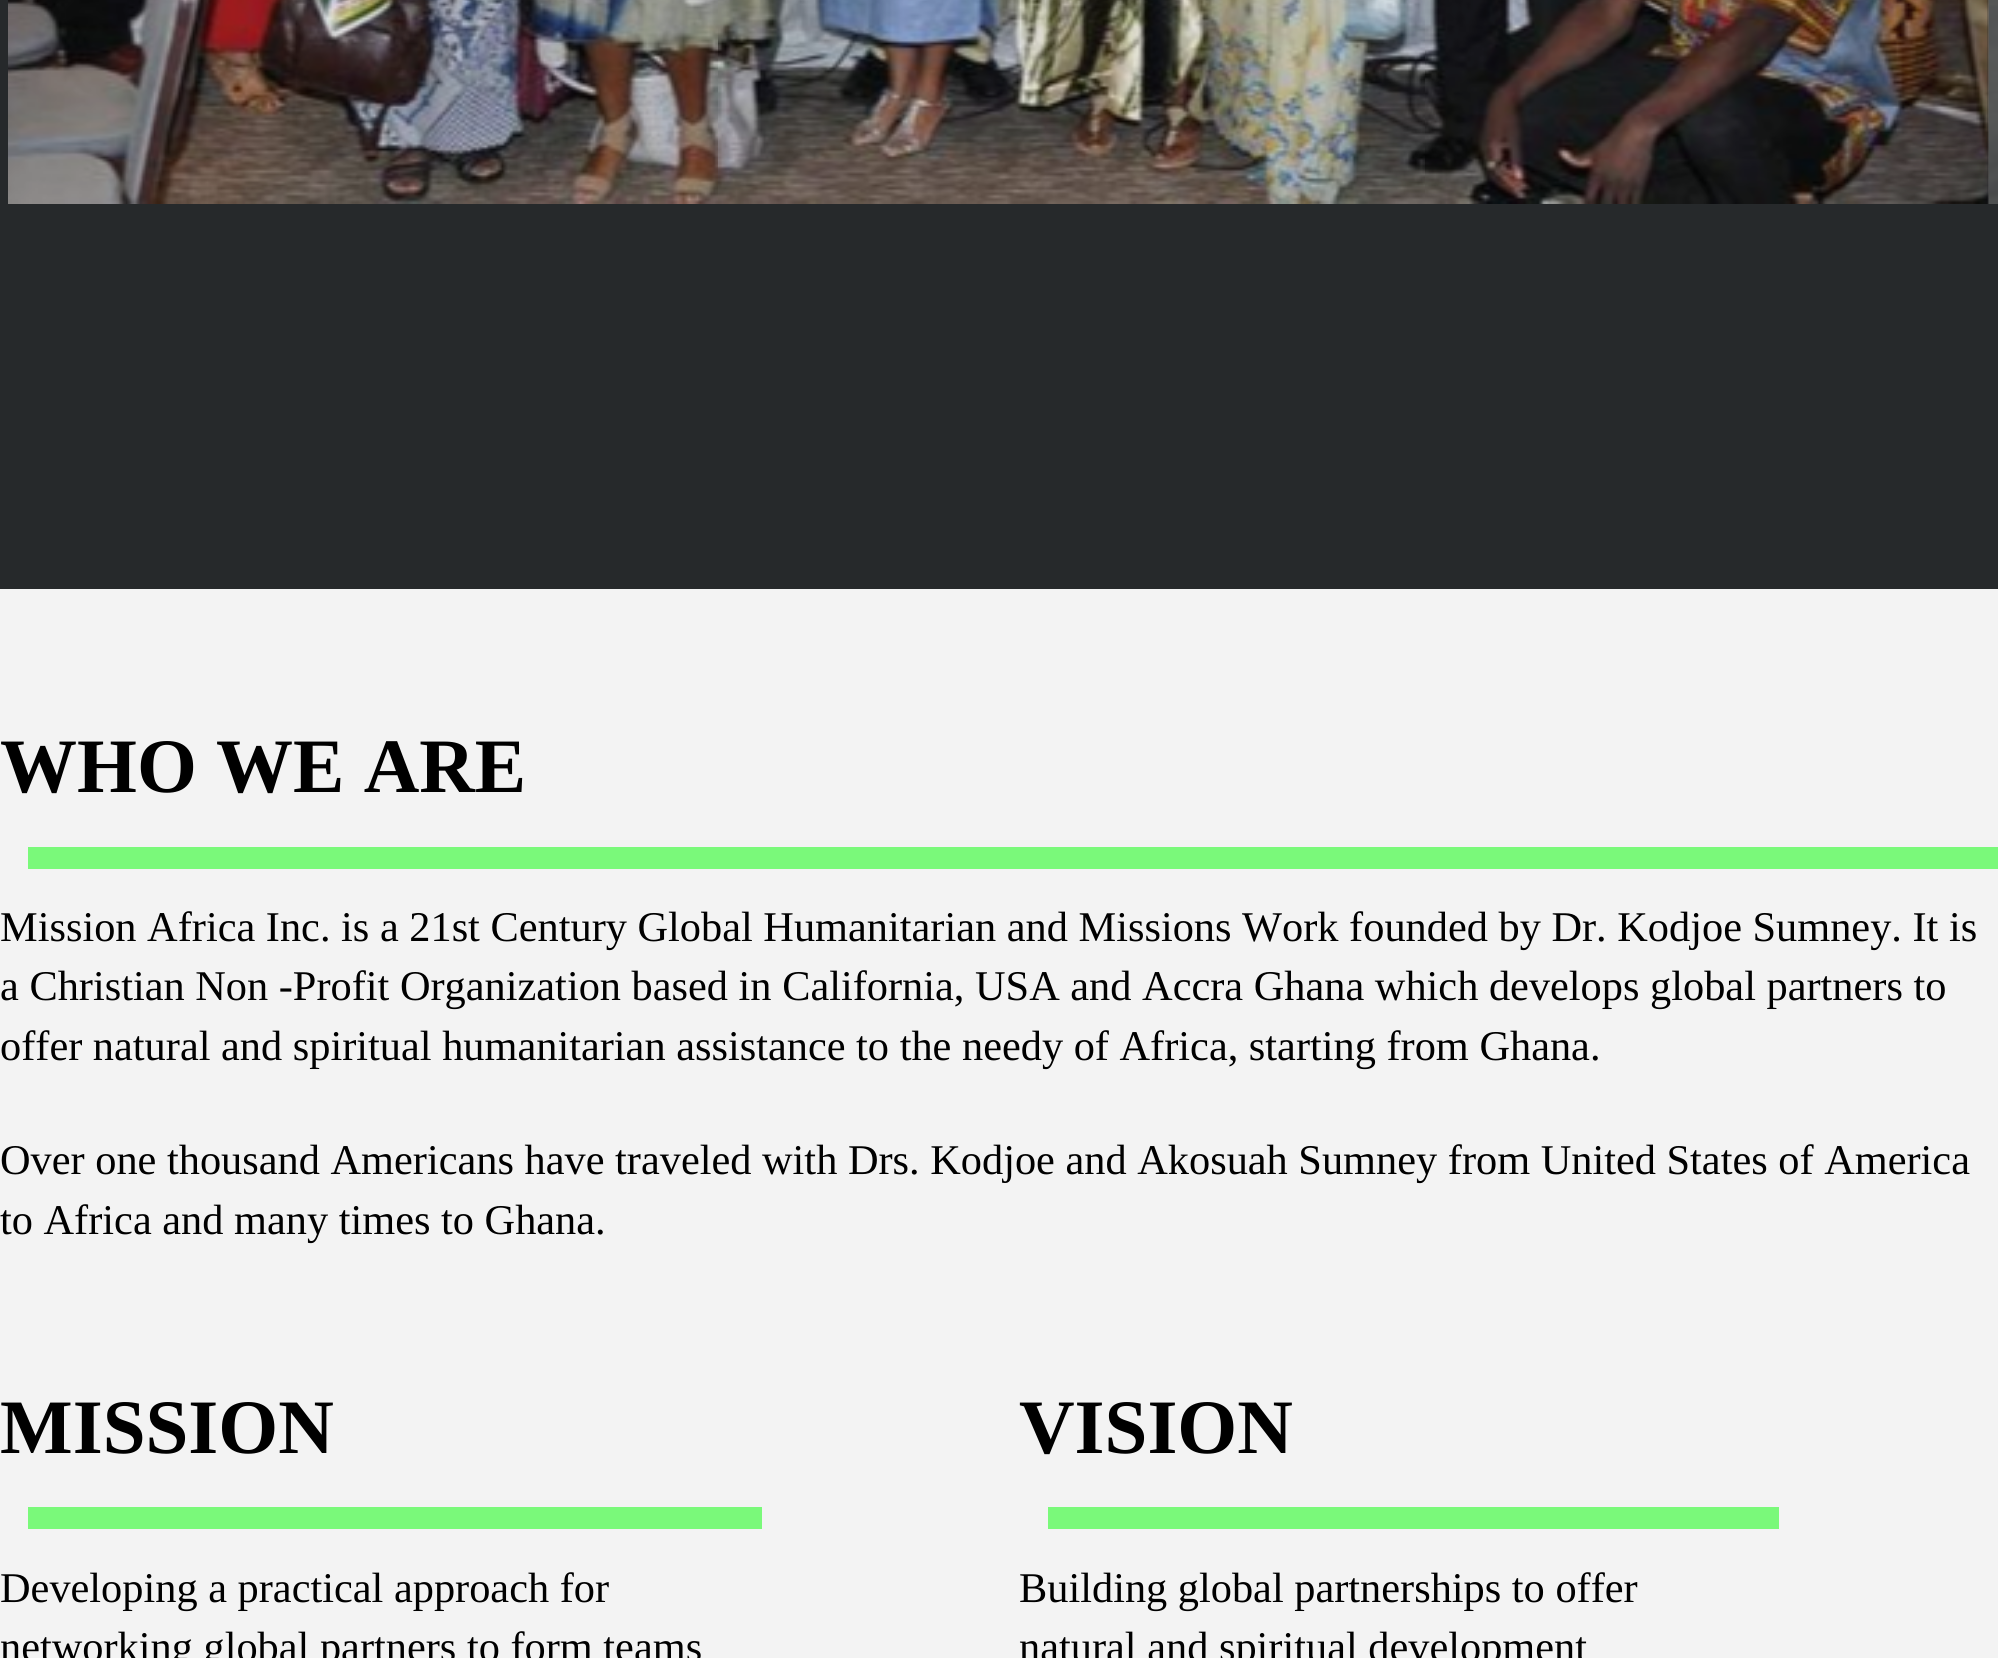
#include <cairo/cairo.h>
#include <math.h>
#include <stddef.h>

static cairo_t *cr;

static void use_color(int r, int g, int b) {
  cairo_set_source_rgb(cr, r / 255.0, g / 255.0, b / 255.0);
}

static void text(double x, double y, const char *s, const char *family, double size, int italic, int bold, int r, int g, int b) {
  cairo_select_font_face(cr, family, italic ? CAIRO_FONT_SLANT_ITALIC : CAIRO_FONT_SLANT_NORMAL,
    bold ? CAIRO_FONT_WEIGHT_BOLD : CAIRO_FONT_WEIGHT_NORMAL);
  cairo_set_font_size(cr, size);
  use_color(r, g, b);
  cairo_move_to(cr, x, y);
  cairo_show_text(cr, s);
}

static void box(double x, double y, double w, double h, int r, int g, int b) {
  use_color(r, g, b);
  cairo_rectangle(cr, x, y, w, h);
  cairo_fill(cr);
}

static void picture(const char *path, double x, double y, double w, double h) {
  cairo_surface_t *image = cairo_image_surface_create_from_png(path);
  cairo_save(cr);
  cairo_set_source_surface(cr, image, x, y);
  cairo_rectangle(cr, x, y, w, h);
  cairo_fill(cr);
  cairo_restore(cr);
  cairo_surface_destroy(image);
}

static void draw(void) {
  use_color(243, 243, 243);
  cairo_paint(cr);
  box(0, 0, 1998, 589, 38, 41, 43);
  picture("img_02.png", 1988, 0, 10, 204);
  picture("img_01.png", 8, 0, 1981, 204);
  box(28, 847, 1970, 22, 122, 249, 122);
  box(28, 1507, 734, 22, 122, 249, 122);
  box(1048, 1507, 731, 22, 122, 249, 122);
  text(0, 792, "WHO WE ARE", "Liberation Serif", 77, 0, 1, 0, 0, 0);
  text(0, 941, "Mission Africa Inc. is a 21st Century Global Humanitarian and Missions Work founded by Dr. Kodjoe Sumney. It is", "Liberation Serif", 42.35, 0, 0, 0, 0, 0);
  text(0, 1000, "a Christian Non -Profit Organization based in California, USA and Accra Ghana which develops global partners to", "Liberation Serif", 42.35, 0, 0, 0, 0, 0);
  text(0, 1060, "offer natural and spiritual humanitarian assistance to the needy of Africa, starting from Ghana.", "Liberation Serif", 42.35, 0, 0, 0, 0, 0);
  text(0, 1174, "Over one thousand Americans have traveled with Drs. Kodjoe and Akosuah Sumney from United States of America", "Liberation Serif", 42.35, 0, 0, 0, 0, 0);
  text(0, 1234, "to Africa and many times to Ghana.", "Liberation Serif", 42.35, 0, 0, 0, 0, 0);
  text(0, 1453, "MISSION", "Liberation Serif", 77, 0, 1, 0, 0, 0);
  text(0, 1602, "Developing a practical approach for", "Liberation Serif", 42.35, 0, 0, 0, 0, 0);
  text(0, 1661, "networking global partners to form teams", "Liberation Serif", 42.35, 0, 0, 0, 0, 0);
  text(1019, 1453, "VISION", "Liberation Serif", 77, 0, 1, 0, 0, 0);
  text(1019, 1602, "Building global partnerships to offer", "Liberation Serif", 42.35, 0, 0, 0, 0, 0);
  text(1019, 1661, "natural and spiritual development", "Liberation Serif", 42.35, 0, 0, 0, 0, 0);
}

int main(void) {
  cairo_surface_t *surface = cairo_image_surface_create(CAIRO_FORMAT_RGB24, 1998, 1658);
  cr = cairo_create(surface);
  cairo_font_options_t *options = cairo_font_options_create();
  cairo_font_options_set_hint_metrics(options, CAIRO_HINT_METRICS_OFF);
  cairo_font_options_set_hint_style(options, CAIRO_HINT_STYLE_NONE);
  cairo_set_font_options(cr, options);
  cairo_set_miter_limit(cr, 4);
  draw();
  cairo_surface_write_to_png(surface, "out.png");
  cairo_font_options_destroy(options);
  cairo_destroy(cr);
  cairo_surface_destroy(surface);
  return 0;
}
